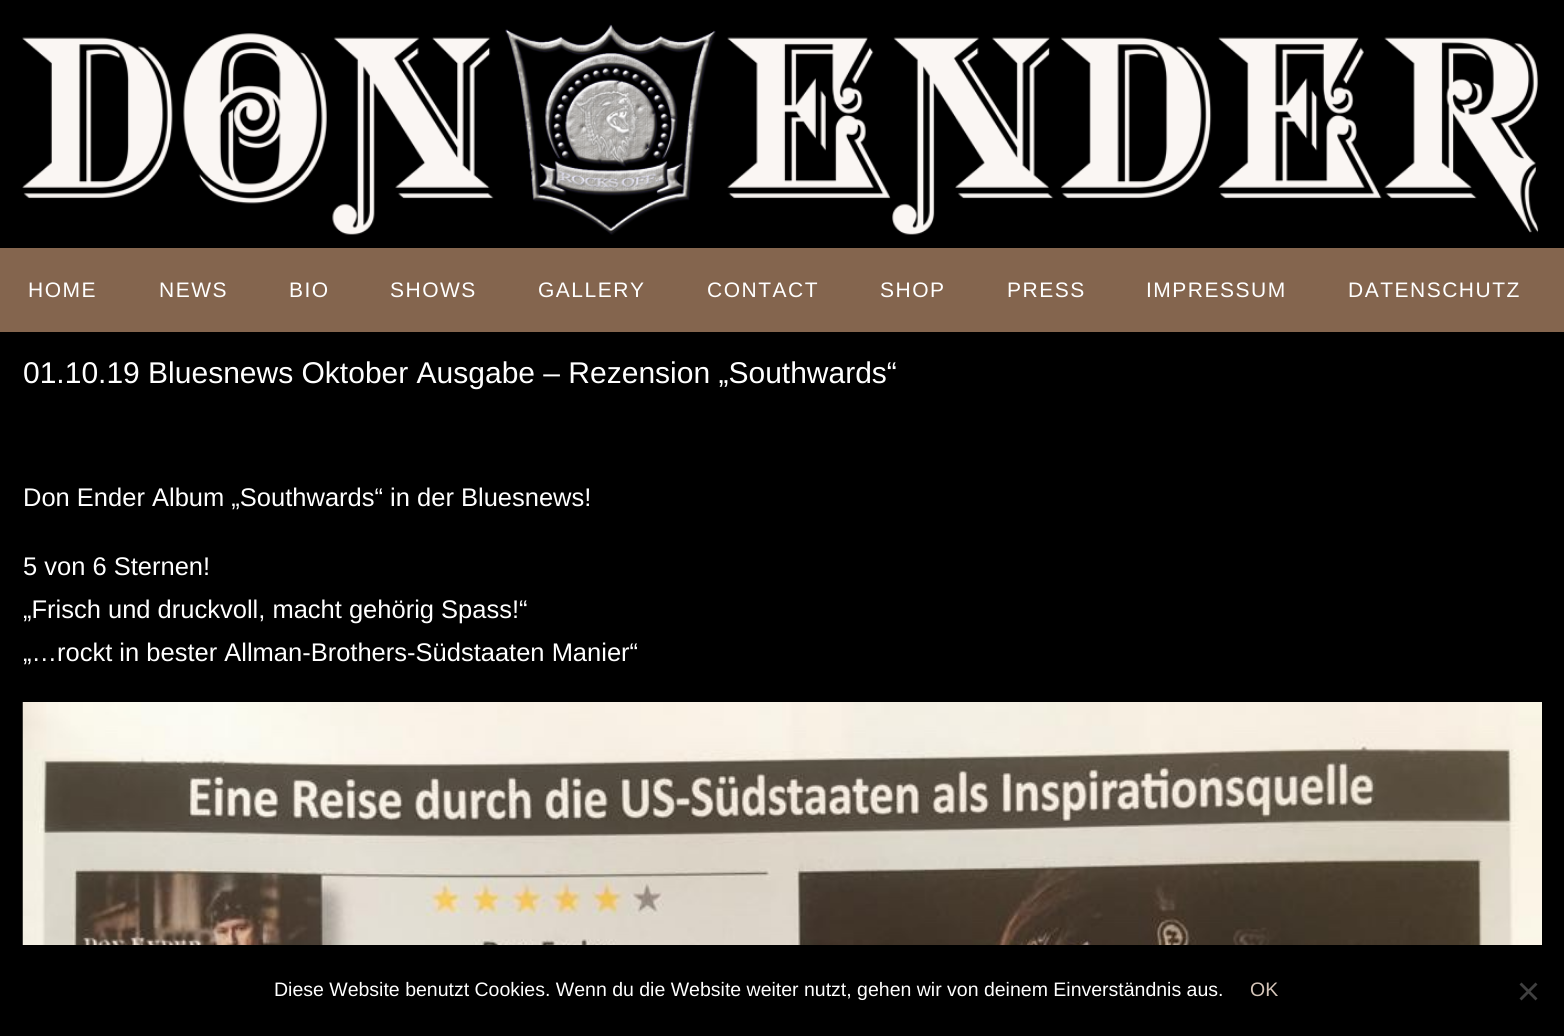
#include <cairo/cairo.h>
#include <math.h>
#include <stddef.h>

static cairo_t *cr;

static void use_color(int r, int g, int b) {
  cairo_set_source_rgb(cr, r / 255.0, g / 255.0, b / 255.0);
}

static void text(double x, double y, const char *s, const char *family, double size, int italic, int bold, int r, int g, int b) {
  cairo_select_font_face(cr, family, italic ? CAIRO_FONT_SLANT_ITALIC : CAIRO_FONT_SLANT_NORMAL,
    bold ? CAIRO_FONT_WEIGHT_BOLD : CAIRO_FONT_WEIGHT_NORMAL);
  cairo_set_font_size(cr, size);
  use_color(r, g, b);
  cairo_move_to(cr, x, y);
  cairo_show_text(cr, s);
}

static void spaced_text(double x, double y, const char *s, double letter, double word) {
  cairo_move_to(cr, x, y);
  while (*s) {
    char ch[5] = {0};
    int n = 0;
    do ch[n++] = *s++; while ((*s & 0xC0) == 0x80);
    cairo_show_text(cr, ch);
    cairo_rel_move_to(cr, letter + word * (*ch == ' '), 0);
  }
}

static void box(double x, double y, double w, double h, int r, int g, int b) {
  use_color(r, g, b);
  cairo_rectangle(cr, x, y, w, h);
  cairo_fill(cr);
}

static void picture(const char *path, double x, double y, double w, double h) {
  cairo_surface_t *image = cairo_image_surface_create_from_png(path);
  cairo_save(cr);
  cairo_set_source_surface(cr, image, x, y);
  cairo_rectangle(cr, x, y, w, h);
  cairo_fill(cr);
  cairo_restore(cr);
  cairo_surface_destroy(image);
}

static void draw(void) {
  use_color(0, 0, 0);
  cairo_paint(cr);
  picture("img_01.png", 22, 24, 1517, 211);
  box(0, 248, 1564, 84, 132, 101, 78);
  picture("img_02.png", 22, 702, 1520, 243);
  use_color(64, 64, 64);
  cairo_new_path(cr);
  cairo_move_to(cr, 1535.5, 982.5);
  cairo_line_to(cr, 1537.5, 984.5);
  cairo_line_to(cr, 1521.5, 1000.5);
  cairo_line_to(cr, 1519.5, 998.5);
  cairo_close_path(cr);
  cairo_fill(cr);
  cairo_new_path(cr);
  cairo_move_to(cr, 1519.5, 984.5);
  cairo_line_to(cr, 1521.5, 982.5);
  cairo_line_to(cr, 1537.5, 998.5);
  cairo_line_to(cr, 1535.5, 1000.5);
  cairo_close_path(cr);
  cairo_fill(cr);
  cairo_select_font_face(cr, "Liberation Sans", CAIRO_FONT_SLANT_NORMAL, CAIRO_FONT_WEIGHT_NORMAL);
  cairo_set_font_size(cr, 21);
  use_color(255, 255, 255);
  spaced_text(28, 297, "HOME", 1.5, 0);
  spaced_text(159, 297, "NEWS", 1.5, 0);
  spaced_text(289, 297, "BIO", 1.5, 0);
  spaced_text(390, 297, "SHOWS", 1.5, 0);
  spaced_text(538, 297, "GALLERY", 1.5, 0);
  spaced_text(707, 297, "CONTACT", 1.5, 0);
  spaced_text(880, 297, "SHOP", 1.5, 0);
  spaced_text(1007, 297, "PRESS", 1.5, 0);
  spaced_text(1146, 297, "IMPRESSUM", 1.5, 0);
  spaced_text(1348, 297, "DATENSCHUTZ", 1.5, 0);
  text(23, 383, "01.10.19 Bluesnews Oktober Ausgabe – Rezension „Southwards“", "Liberation Sans", 30, 0, 0, 255, 255, 255);
  text(23, 506, "Don Ender Album „Southwards“ in der Bluesnews!", "Liberation Sans", 25.5, 0, 0, 255, 255, 255);
  text(23, 575, "5 von 6 Sternen!", "Liberation Sans", 25.5, 0, 0, 255, 255, 255);
  text(23, 618, "„Frisch und druckvoll, macht gehörig Spass!“", "Liberation Sans", 25.5, 0, 0, 255, 255, 255);
  text(23, 661, "„…rockt in bester Allman-Brothers-Südstaaten Manier“", "Liberation Sans", 25.5, 0, 0, 255, 255, 255);
  text(274, 996, "Diese Website benutzt Cookies. Wenn du die Website weiter nutzt, gehen wir von deinem Einverständnis aus.", "Liberation Sans", 19.5, 0, 0, 255, 255, 255);
  text(1250, 996, "OK", "Liberation Sans", 19.5, 0, 0, 213, 197, 185);
}

int main(void) {
  cairo_surface_t *surface = cairo_image_surface_create(CAIRO_FORMAT_RGB24, 1564, 1036);
  cr = cairo_create(surface);
  cairo_font_options_t *options = cairo_font_options_create();
  cairo_font_options_set_hint_metrics(options, CAIRO_HINT_METRICS_OFF);
  cairo_font_options_set_hint_style(options, CAIRO_HINT_STYLE_NONE);
  cairo_set_font_options(cr, options);
  cairo_set_miter_limit(cr, 4);
  draw();
  cairo_surface_write_to_png(surface, "out.png");
  cairo_font_options_destroy(options);
  cairo_destroy(cr);
  cairo_surface_destroy(surface);
  return 0;
}
